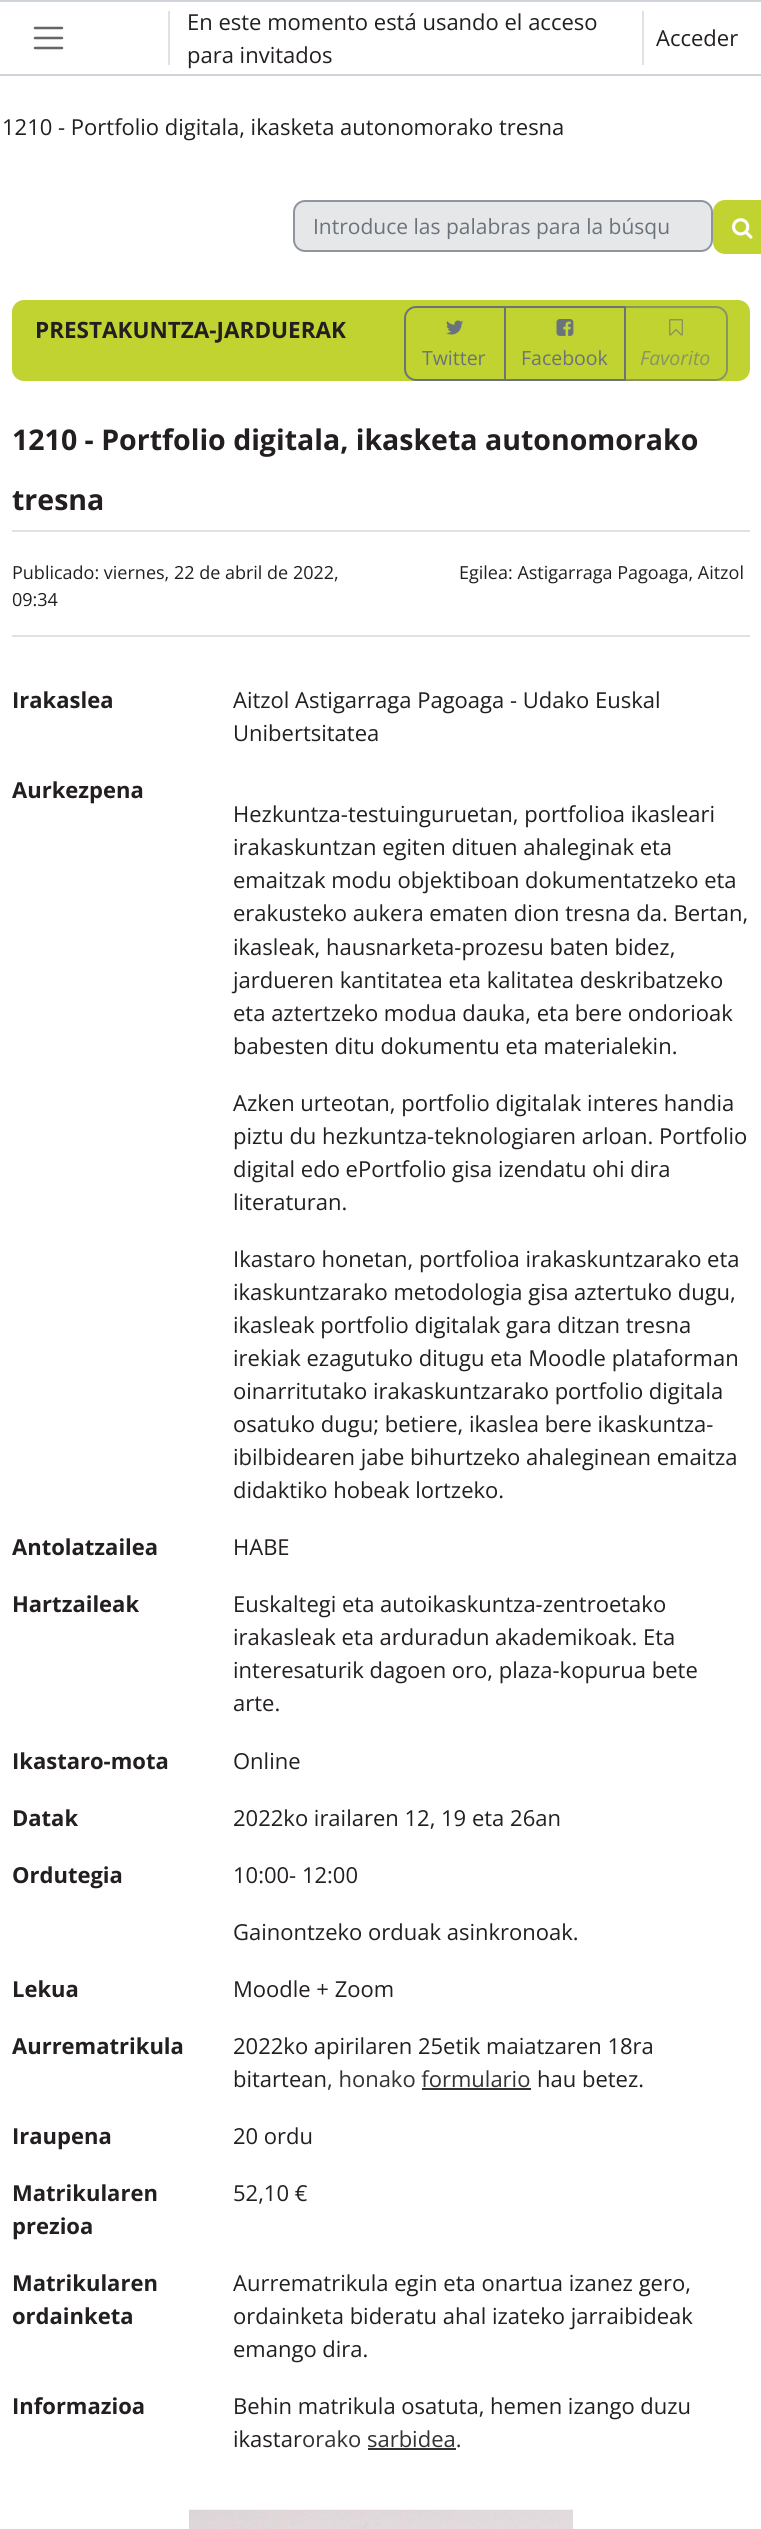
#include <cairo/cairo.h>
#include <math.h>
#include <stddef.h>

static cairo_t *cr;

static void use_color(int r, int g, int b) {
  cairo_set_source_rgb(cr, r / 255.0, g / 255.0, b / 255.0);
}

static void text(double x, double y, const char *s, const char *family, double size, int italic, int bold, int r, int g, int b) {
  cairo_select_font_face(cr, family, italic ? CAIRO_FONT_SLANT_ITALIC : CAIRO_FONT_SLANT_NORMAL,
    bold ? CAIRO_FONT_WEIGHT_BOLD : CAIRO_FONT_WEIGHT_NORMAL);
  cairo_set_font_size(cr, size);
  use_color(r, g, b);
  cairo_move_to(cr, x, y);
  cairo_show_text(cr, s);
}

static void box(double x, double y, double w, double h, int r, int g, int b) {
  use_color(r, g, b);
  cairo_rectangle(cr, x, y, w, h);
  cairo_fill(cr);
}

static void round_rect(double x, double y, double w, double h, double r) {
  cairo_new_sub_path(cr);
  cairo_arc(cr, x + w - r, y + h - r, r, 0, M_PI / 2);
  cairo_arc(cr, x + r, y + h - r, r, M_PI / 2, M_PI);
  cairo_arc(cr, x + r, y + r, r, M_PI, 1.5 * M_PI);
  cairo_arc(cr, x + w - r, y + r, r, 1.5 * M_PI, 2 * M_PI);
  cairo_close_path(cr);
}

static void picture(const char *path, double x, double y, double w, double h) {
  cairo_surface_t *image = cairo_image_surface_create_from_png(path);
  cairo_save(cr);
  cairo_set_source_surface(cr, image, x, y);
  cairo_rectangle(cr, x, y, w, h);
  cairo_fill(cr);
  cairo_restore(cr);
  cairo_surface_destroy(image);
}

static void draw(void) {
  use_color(255, 255, 255);
  cairo_paint(cr);
  box(0, 0, 761, 2, 206, 212, 218);
  box(0, 74, 761, 2, 206, 212, 218);
  cairo_new_path(cr);
  cairo_move_to(cr, 35, 28);
  cairo_line_to(cr, 62, 28);
  cairo_move_to(cr, 35, 38);
  cairo_line_to(cr, 62, 38);
  cairo_move_to(cr, 35, 48);
  cairo_line_to(cr, 62, 48);
  use_color(102, 102, 102);
  cairo_set_line_width(cr, 2.5);
  cairo_set_line_cap(cr, CAIRO_LINE_CAP_ROUND);
  cairo_stroke(cr);
  box(168, 11, 2, 54, 222, 226, 230);
  box(642, 11, 2, 54, 222, 226, 230);
  use_color(230, 231, 232);
  round_rect(294, 201, 418, 50, 11);
  cairo_fill_preserve(cr);
  use_color(143, 149, 158);
  cairo_set_line_width(cr, 2);
  cairo_set_line_cap(cr, CAIRO_LINE_CAP_BUTT);
  cairo_stroke(cr);
  use_color(193, 211, 49);
  round_rect(714, 201, 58, 52, 11);
  cairo_fill_preserve(cr);
  cairo_stroke(cr);
  picture("img_01.png", 732, 218, 21, 21);
  round_rect(12, 300, 738, 81, 12);
  cairo_fill(cr);
  cairo_new_path(cr);
  cairo_move_to(cr, 416, 307);
  cairo_line_to(cr, 505, 307);
  cairo_line_to(cr, 505, 380);
  cairo_line_to(cr, 416, 380);
  cairo_curve_to(cr, 410, 380, 405, 375, 405, 369);
  cairo_line_to(cr, 405, 318);
  cairo_curve_to(cr, 405, 312, 410, 307, 416, 307);
  cairo_close_path(cr);
  use_color(106, 115, 123);
  cairo_stroke(cr);
  picture("img_02.png", 446, 320, 17, 15);
  cairo_rectangle(cr, 505, 307, 120, 73);
  cairo_stroke(cr);
  picture("img_03.png", 556, 319, 18, 17);
  cairo_new_path(cr);
  cairo_move_to(cr, 625, 307);
  cairo_line_to(cr, 716, 307);
  cairo_curve_to(cr, 722, 307, 727, 312, 727, 318);
  cairo_line_to(cr, 727, 369);
  cairo_curve_to(cr, 727, 375, 722, 380, 716, 380);
  cairo_line_to(cr, 625, 380);
  cairo_close_path(cr);
  cairo_set_source_rgba(cr, 0.416, 0.451, 0.482, 0.65);
  cairo_stroke(cr);
  picture("img_04.png", 669, 319, 14, 17);
  box(12, 530, 738, 2, 225, 225, 225);
  box(12, 635, 738, 2, 225, 225, 225);
  box(422, 2088, 109, 2, 51, 51, 51);
  box(368, 2448, 88, 2, 51, 51, 51);
  picture("img_05.png", 189, 2509, 384, 20);
  text(187, 30, "En este momento está usando el acceso", "Open Sans", 22, 0, 0, 35, 31, 32);
  text(656, 46, "Acceder", "Open Sans", 22, 0, 0, 35, 31, 32);
  text(187, 63, "para invitados", "Open Sans", 22, 0, 0, 35, 31, 32);
  text(2, 135, "1210 - Portfolio digitala, ikasketa autonomorako tresna", "Open Sans", 22, 0, 0, 35, 31, 32);
  text(313, 234, "Introduce las palabras para la búsqu", "Open Sans", 21, 0, 0, 106, 115, 123);
  text(35, 338, "PRESTAKUNTZA-JARDUERAK", "Open Sans", 22.5, 0, 1, 35, 31, 32);
  text(422, 365, "Twitter", "Open Sans", 19.5, 0, 0, 106, 115, 123);
  text(521, 365, "Facebook", "Open Sans", 19.5, 0, 0, 106, 115, 123);
  text(640, 365, "Favorito", "Open Sans", 19.5, 1, 0, 136, 149, 97);
  text(12, 450, "1210 - Portfolio digitala, ikasketa autonomorako", "Open Sans", 28.5, 0, 1, 35, 31, 32);
  text(12, 510, "tresna", "Open Sans", 28.5, 0, 1, 35, 31, 32);
  text(12, 579, "Publicado: viernes, 22 de abril de 2022,", "Open Sans", 18, 0, 0, 35, 31, 32);
  text(12, 606, "09:34", "Open Sans", 18, 0, 0, 35, 31, 32);
  text(459, 579, "Egilea: Astigarraga Pagoaga, Aitzol", "Open Sans", 18, 0, 0, 35, 31, 32);
  text(12, 708, "Irakaslea", "Open Sans", 22, 0, 1, 35, 31, 32);
  text(233, 708, "Aitzol Astigarraga Pagoaga - Udako Euskal", "Open Sans", 22, 0, 0, 35, 31, 32);
  text(233, 741, "Unibertsitatea", "Open Sans", 22, 0, 0, 35, 31, 32);
  text(12, 798, "Aurkezpena", "Open Sans", 22, 0, 1, 35, 31, 32);
  text(233, 822, "Hezkuntza-testuinguruetan, portfolioa ikasleari", "Open Sans", 22, 0, 0, 35, 31, 32);
  text(233, 855, "irakaskuntzan egiten dituen ahaleginak eta", "Open Sans", 22, 0, 0, 35, 31, 32);
  text(233, 888, "emaitzak modu objektiboan dokumentatzeko eta", "Open Sans", 22, 0, 0, 35, 31, 32);
  text(233, 921, "erakusteko aukera ematen dion tresna da. Bertan,", "Open Sans", 22, 0, 0, 35, 31, 32);
  text(233, 955, "ikasleak, hausnarketa-prozesu baten bidez,", "Open Sans", 22, 0, 0, 35, 31, 32);
  text(233, 988, "jardueren kantitatea eta kalitatea deskribatzeko", "Open Sans", 22, 0, 0, 35, 31, 32);
  text(233, 1021, "eta aztertzeko modua dauka, eta bere ondorioak", "Open Sans", 22, 0, 0, 35, 31, 32);
  text(233, 1054, "babesten ditu dokumentu eta materialekin.", "Open Sans", 22, 0, 0, 35, 31, 32);
  text(233, 1111, "Azken urteotan, portfolio digitalak interes handia", "Open Sans", 22, 0, 0, 35, 31, 32);
  text(233, 1144, "piztu du hezkuntza-teknologiaren arloan. Portfolio", "Open Sans", 22, 0, 0, 35, 31, 32);
  text(233, 1177, "digital edo ePortfolio gisa izendatu ohi dira", "Open Sans", 22, 0, 0, 35, 31, 32);
  text(233, 1210, "literaturan.", "Open Sans", 22, 0, 0, 35, 31, 32);
  text(233, 1267, "Ikastaro honetan, portfolioa irakaskuntzarako eta", "Open Sans", 22, 0, 0, 35, 31, 32);
  text(233, 1300, "ikaskuntzarako metodologia gisa aztertuko dugu,", "Open Sans", 22, 0, 0, 35, 31, 32);
  text(233, 1333, "ikasleak portfolio digitalak gara ditzan tresna", "Open Sans", 22, 0, 0, 35, 31, 32);
  text(233, 1366, "irekiak ezagutuko ditugu eta Moodle plataforman", "Open Sans", 22, 0, 0, 35, 31, 32);
  text(233, 1399, "oinarritutako irakaskuntzarako portfolio digitala", "Open Sans", 22, 0, 0, 35, 31, 32);
  text(233, 1432, "osatuko dugu; betiere, ikaslea bere ikaskuntza-", "Open Sans", 22, 0, 0, 35, 31, 32);
  text(233, 1465, "ibilbidearen jabe bihurtzeko ahaleginean emaitza", "Open Sans", 22, 0, 0, 35, 31, 32);
  text(233, 1498, "didaktiko hobeak lortzeko.", "Open Sans", 22, 0, 0, 35, 31, 32);
  text(12, 1555, "Antolatzailea", "Open Sans", 22, 0, 1, 35, 31, 32);
  text(233, 1555, "HABE", "Open Sans", 22, 0, 0, 35, 31, 32);
  text(12, 1612, "Hartzaileak", "Open Sans", 22, 0, 1, 35, 31, 32);
  text(233, 1612, "Euskaltegi eta autoikaskuntza-zentroetako", "Open Sans", 22, 0, 0, 35, 31, 32);
  text(233, 1645, "irakasleak eta arduradun akademikoak. Eta", "Open Sans", 22, 0, 0, 35, 31, 32);
  text(233, 1678, "interesaturik dagoen oro, plaza-kopurua bete", "Open Sans", 22, 0, 0, 35, 31, 32);
  text(233, 1711, "arte.", "Open Sans", 22, 0, 0, 35, 31, 32);
  text(12, 1769, "Ikastaro-mota", "Open Sans", 22, 0, 1, 35, 31, 32);
  text(233, 1769, "Online", "Open Sans", 22, 0, 0, 35, 31, 32);
  text(12, 1826, "Datak", "Open Sans", 22, 0, 1, 35, 31, 32);
  text(233, 1826, "2022ko irailaren 12, 19 eta 26an", "Open Sans", 22, 0, 0, 35, 31, 32);
  text(12, 1883, "Ordutegia", "Open Sans", 22, 0, 1, 35, 31, 32);
  text(233, 1883, "10:00- 12:00", "Open Sans", 22, 0, 0, 35, 31, 32);
  text(233, 1940, "Gainontzeko orduak asinkronoak.", "Open Sans", 22, 0, 0, 35, 31, 32);
  text(12, 1997, "Lekua", "Open Sans", 22, 0, 1, 35, 31, 32);
  text(233, 1997, "Moodle + Zoom", "Open Sans", 22, 0, 0, 35, 31, 32);
  text(12, 2054, "Aurrematrikula", "Open Sans", 22, 0, 1, 35, 31, 32);
  text(233, 2054, "2022ko apirilaren 25etik maiatzaren 18ra", "Open Sans", 22, 0, 0, 35, 31, 32);
  text(233, 2087, "bitartean", "Open Sans", 22, 0, 0, 35, 31, 32);
  text(327, 2087, ", honako formulario", "Open Sans", 22, 0, 0, 51, 51, 51);
  text(537, 2087, "hau betez.", "Open Sans", 22, 0, 0, 35, 31, 32);
  text(12, 2144, "Iraupena", "Open Sans", 22, 0, 1, 35, 31, 32);
  text(233, 2144, "20 ordu", "Open Sans", 22, 0, 0, 35, 31, 32);
  text(12, 2201, "Matrikularen", "Open Sans", 22, 0, 1, 35, 31, 32);
  text(12, 2234, "prezioa", "Open Sans", 22, 0, 1, 35, 31, 32);
  text(233, 2201, "52,10 €", "Open Sans", 22, 0, 0, 35, 31, 32);
  text(12, 2291, "Matrikularen", "Open Sans", 22, 0, 1, 35, 31, 32);
  text(12, 2324, "ordainketa", "Open Sans", 22, 0, 1, 35, 31, 32);
  text(233, 2291, "Aurrematrikula egin eta onartua izanez gero,", "Open Sans", 22, 0, 0, 35, 31, 32);
  text(233, 2324, "ordainketa bideratu ahal izateko jarraibideak", "Open Sans", 22, 0, 0, 35, 31, 32);
  text(233, 2357, "emango dira.", "Open Sans", 22, 0, 0, 35, 31, 32);
  text(12, 2414, "Informazioa", "Open Sans", 22, 0, 1, 35, 31, 32);
  text(233, 2414, "Behin matrikula osatuta, hemen izango duzu", "Open Sans", 22, 0, 0, 35, 31, 32);
  text(233, 2447, "ikastar", "Open Sans", 22, 0, 0, 35, 31, 32);
  text(302, 2447, "orako sarbidea.", "Open Sans", 22, 0, 0, 51, 51, 51);
}

int main(void) {
  cairo_surface_t *surface = cairo_image_surface_create(CAIRO_FORMAT_RGB24, 761, 2529);
  cr = cairo_create(surface);
  cairo_font_options_t *options = cairo_font_options_create();
  cairo_font_options_set_hint_metrics(options, CAIRO_HINT_METRICS_OFF);
  cairo_font_options_set_hint_style(options, CAIRO_HINT_STYLE_NONE);
  cairo_set_font_options(cr, options);
  cairo_set_miter_limit(cr, 4);
  draw();
  cairo_surface_write_to_png(surface, "out.png");
  cairo_font_options_destroy(options);
  cairo_destroy(cr);
  cairo_surface_destroy(surface);
  return 0;
}
